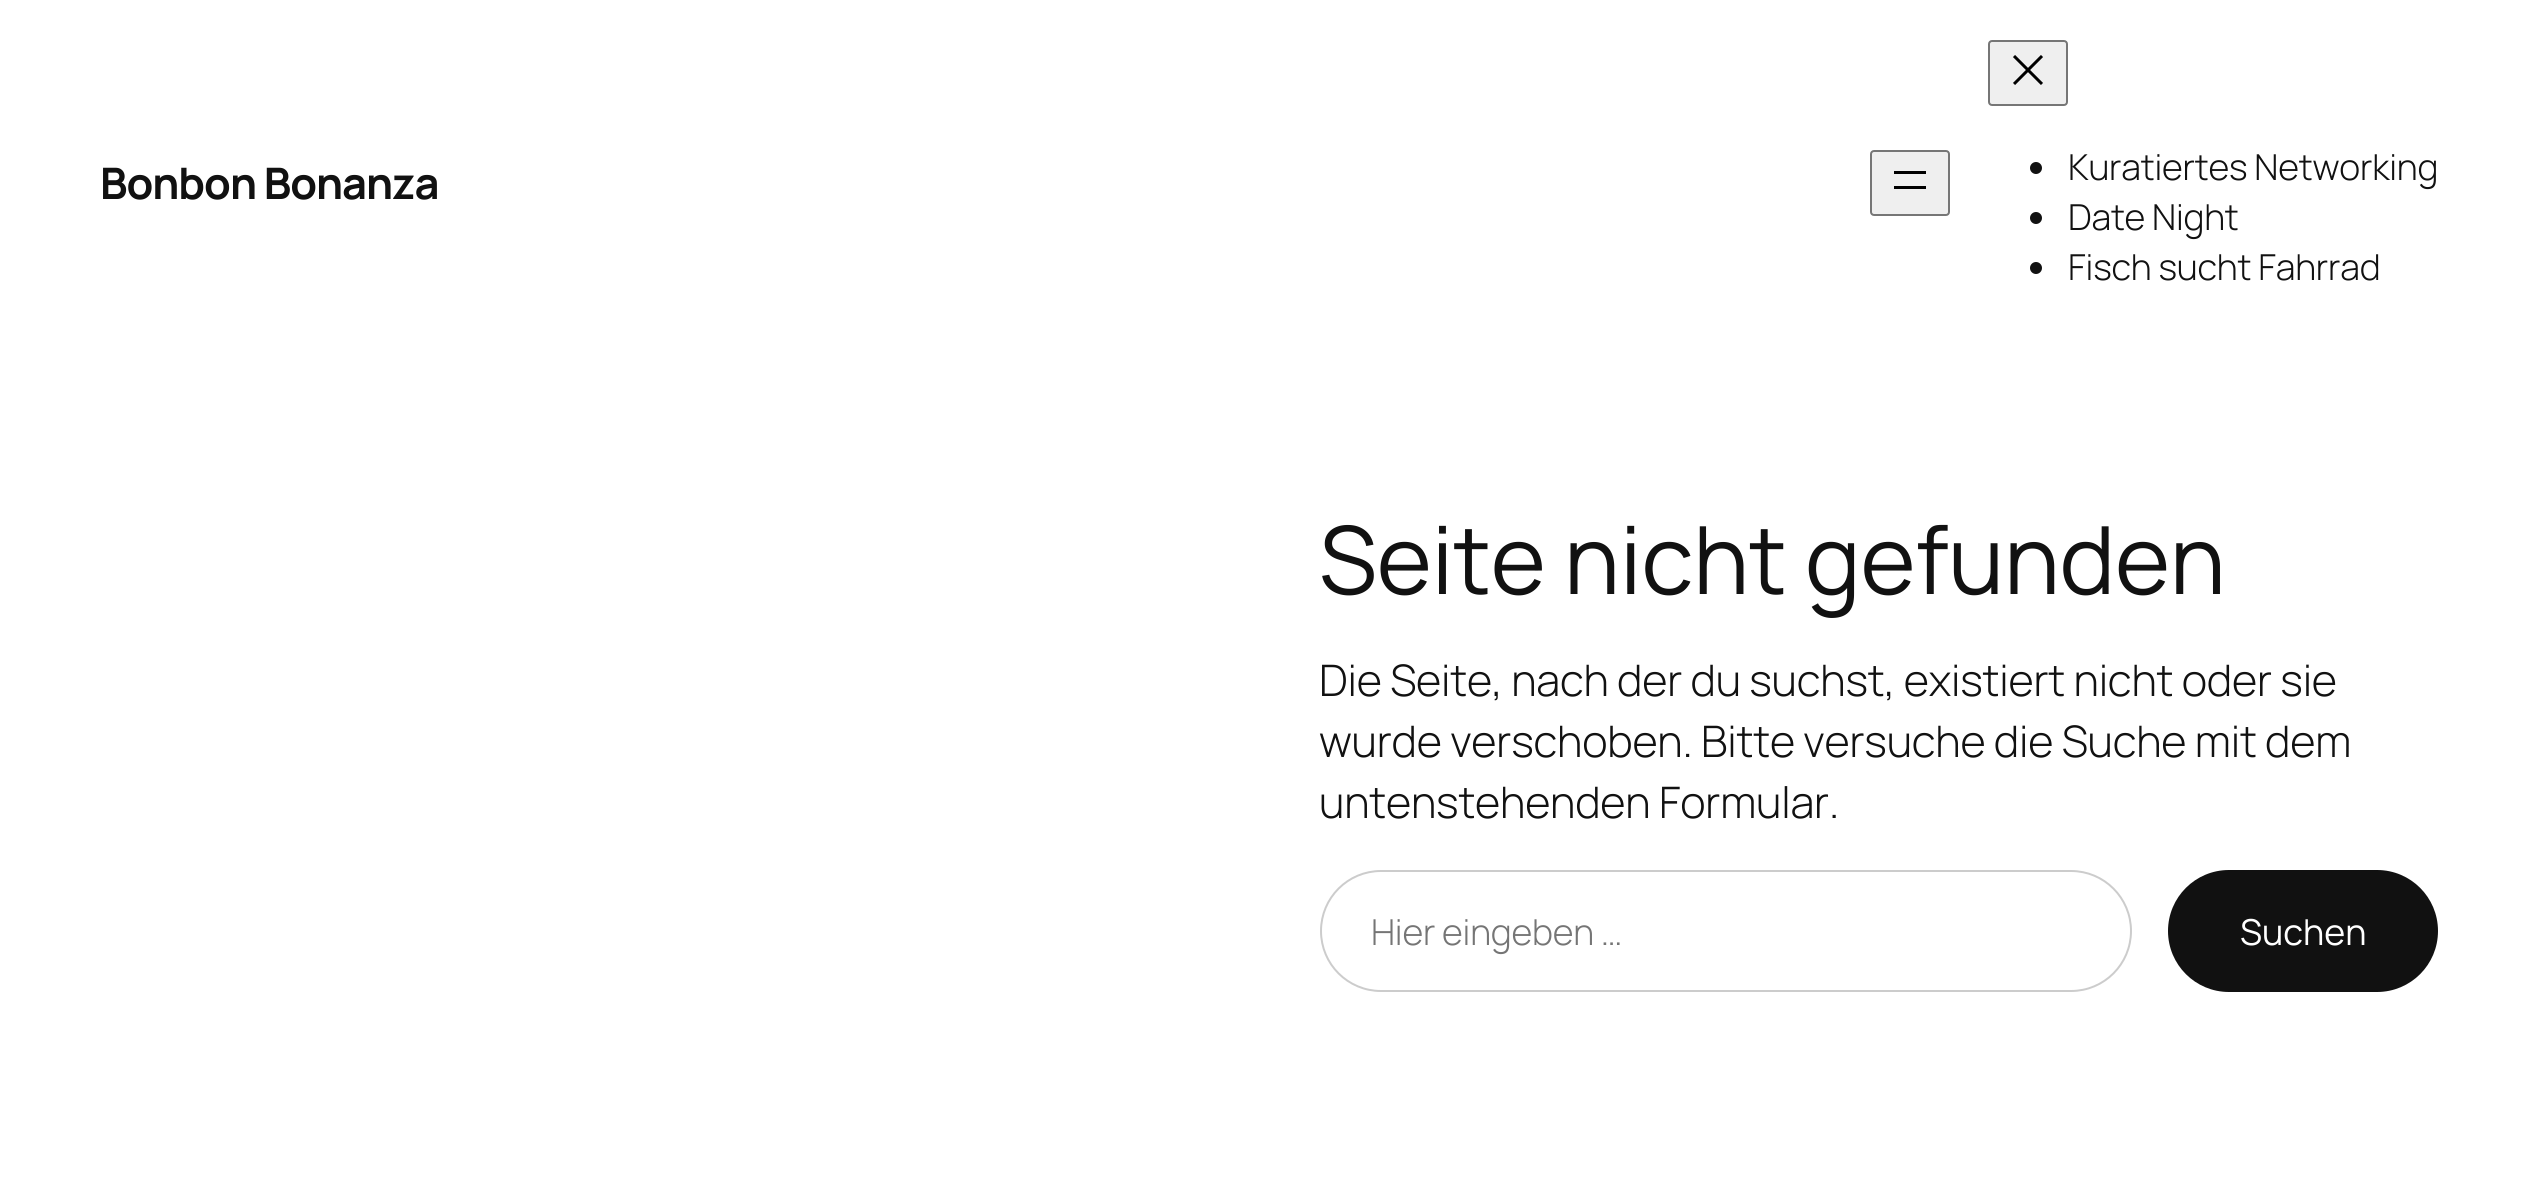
#include <cairo/cairo.h>
#include <math.h>
#include <stddef.h>

static cairo_t *cr;

static void use_color(int r, int g, int b) {
  cairo_set_source_rgb(cr, r / 255.0, g / 255.0, b / 255.0);
}

static void text(double x, double y, const char *s, const char *family, double size, int italic, int bold, int r, int g, int b) {
  cairo_select_font_face(cr, family, italic ? CAIRO_FONT_SLANT_ITALIC : CAIRO_FONT_SLANT_NORMAL,
    bold ? CAIRO_FONT_WEIGHT_BOLD : CAIRO_FONT_WEIGHT_NORMAL);
  cairo_set_font_size(cr, size);
  use_color(r, g, b);
  cairo_move_to(cr, x, y);
  cairo_show_text(cr, s);
}

static void spaced_text(double x, double y, const char *s, double letter, double word) {
  cairo_move_to(cr, x, y);
  while (*s) {
    char ch[5] = {0};
    int n = 0;
    do ch[n++] = *s++; while ((*s & 0xC0) == 0x80);
    cairo_show_text(cr, ch);
    cairo_rel_move_to(cr, letter + word * (*ch == ' '), 0);
  }
}

static void box(double x, double y, double w, double h, int r, int g, int b) {
  use_color(r, g, b);
  cairo_rectangle(cr, x, y, w, h);
  cairo_fill(cr);
}

static void round_rect(double x, double y, double w, double h, double r) {
  cairo_new_sub_path(cr);
  cairo_arc(cr, x + w - r, y + h - r, r, 0, M_PI / 2);
  cairo_arc(cr, x + r, y + h - r, r, M_PI / 2, M_PI);
  cairo_arc(cr, x + r, y + r, r, M_PI, 1.5 * M_PI);
  cairo_arc(cr, x + w - r, y + r, r, 1.5 * M_PI, 2 * M_PI);
  cairo_close_path(cr);
}

static void picture(const char *path, double x, double y, double w, double h) {
  cairo_surface_t *image = cairo_image_surface_create_from_png(path);
  cairo_save(cr);
  cairo_set_source_surface(cr, image, x, y);
  cairo_rectangle(cr, x, y, w, h);
  cairo_fill(cr);
  cairo_restore(cr);
  cairo_surface_destroy(image);
}

static void draw(void) {
  use_color(255, 255, 255);
  cairo_paint(cr);
  use_color(239, 239, 239);
  round_rect(1871, 151, 78, 64, 3);
  cairo_fill_preserve(cr);
  use_color(118, 118, 118);
  cairo_stroke(cr);
  box(1894, 171, 32, 3, 0, 0, 0);
  box(1894, 186, 32, 3, 0, 0, 0);
  use_color(239, 239, 239);
  round_rect(1989, 41, 78, 64, 3);
  cairo_fill_preserve(cr);
  use_color(118, 118, 118);
  cairo_stroke(cr);
  picture("img_01.png", 2013, 55, 30, 30);
  use_color(17, 17, 17);
  cairo_arc(cr, 2036, 168, 6, 0, 2 * M_PI);
  cairo_fill(cr);
  cairo_arc(cr, 2036, 218, 6, 0, 2 * M_PI);
  cairo_fill(cr);
  cairo_arc(cr, 2036, 268, 6, 0, 2 * M_PI);
  cairo_fill(cr);
  round_rect(1321, 871, 810, 120, 60);
  use_color(204, 204, 204);
  cairo_stroke(cr);
  use_color(17, 17, 17);
  round_rect(2168, 870, 270, 122, 61);
  cairo_fill(cr);
  cairo_select_font_face(cr, "Manrope", CAIRO_FONT_SLANT_NORMAL, CAIRO_FONT_WEIGHT_BOLD);
  cairo_set_font_size(cr, 43.4);
  spaced_text(100, 199, "Bonbon Bonanza", -1, 0);
  cairo_select_font_face(cr, "Manrope Light", CAIRO_FONT_SLANT_NORMAL, CAIRO_FONT_WEIGHT_NORMAL);
  cairo_set_font_size(cr, 35.75);
  spaced_text(2068, 180, "Kuratiertes Networking", -0.2, 0);
  spaced_text(2068, 230, "Date Night", -0.2, 0);
  spaced_text(2068, 280, "Fisch sucht Fahrrad", -0.2, 0);
  cairo_select_font_face(cr, "Manrope", CAIRO_FONT_SLANT_NORMAL, CAIRO_FONT_WEIGHT_NORMAL);
  cairo_set_font_size(cr, 94);
  spaced_text(1319, 594, "Seite nicht gefunden", -0.2, 0);
  cairo_select_font_face(cr, "Manrope Light", CAIRO_FONT_SLANT_NORMAL, CAIRO_FONT_WEIGHT_NORMAL);
  cairo_set_font_size(cr, 43.4);
  spaced_text(1319, 696, "Die Seite, nach der du suchst, existiert nicht oder sie", -0.2, 0);
  spaced_text(1319, 757, "wurde verschoben. Bitte versuche die Suche mit dem", -0.2, 0);
  spaced_text(1319, 818, "untenstehenden Formular.", -0.2, 0);
  cairo_set_font_size(cr, 35.75);
  use_color(117, 117, 117);
  spaced_text(1371, 945, "Hier eingeben …", -0.2, 0);
  text(2240, 945, "Suchen", "Manrope", 35.75, 0, 0, 255, 255, 255);
}

int main(void) {
  cairo_surface_t *surface = cairo_image_surface_create(CAIRO_FORMAT_RGB24, 2537, 1192);
  cr = cairo_create(surface);
  cairo_font_options_t *options = cairo_font_options_create();
  cairo_font_options_set_hint_metrics(options, CAIRO_HINT_METRICS_OFF);
  cairo_font_options_set_hint_style(options, CAIRO_HINT_STYLE_NONE);
  cairo_set_font_options(cr, options);
  cairo_set_miter_limit(cr, 4);
  draw();
  cairo_surface_write_to_png(surface, "out.png");
  cairo_font_options_destroy(options);
  cairo_destroy(cr);
  cairo_surface_destroy(surface);
  return 0;
}
